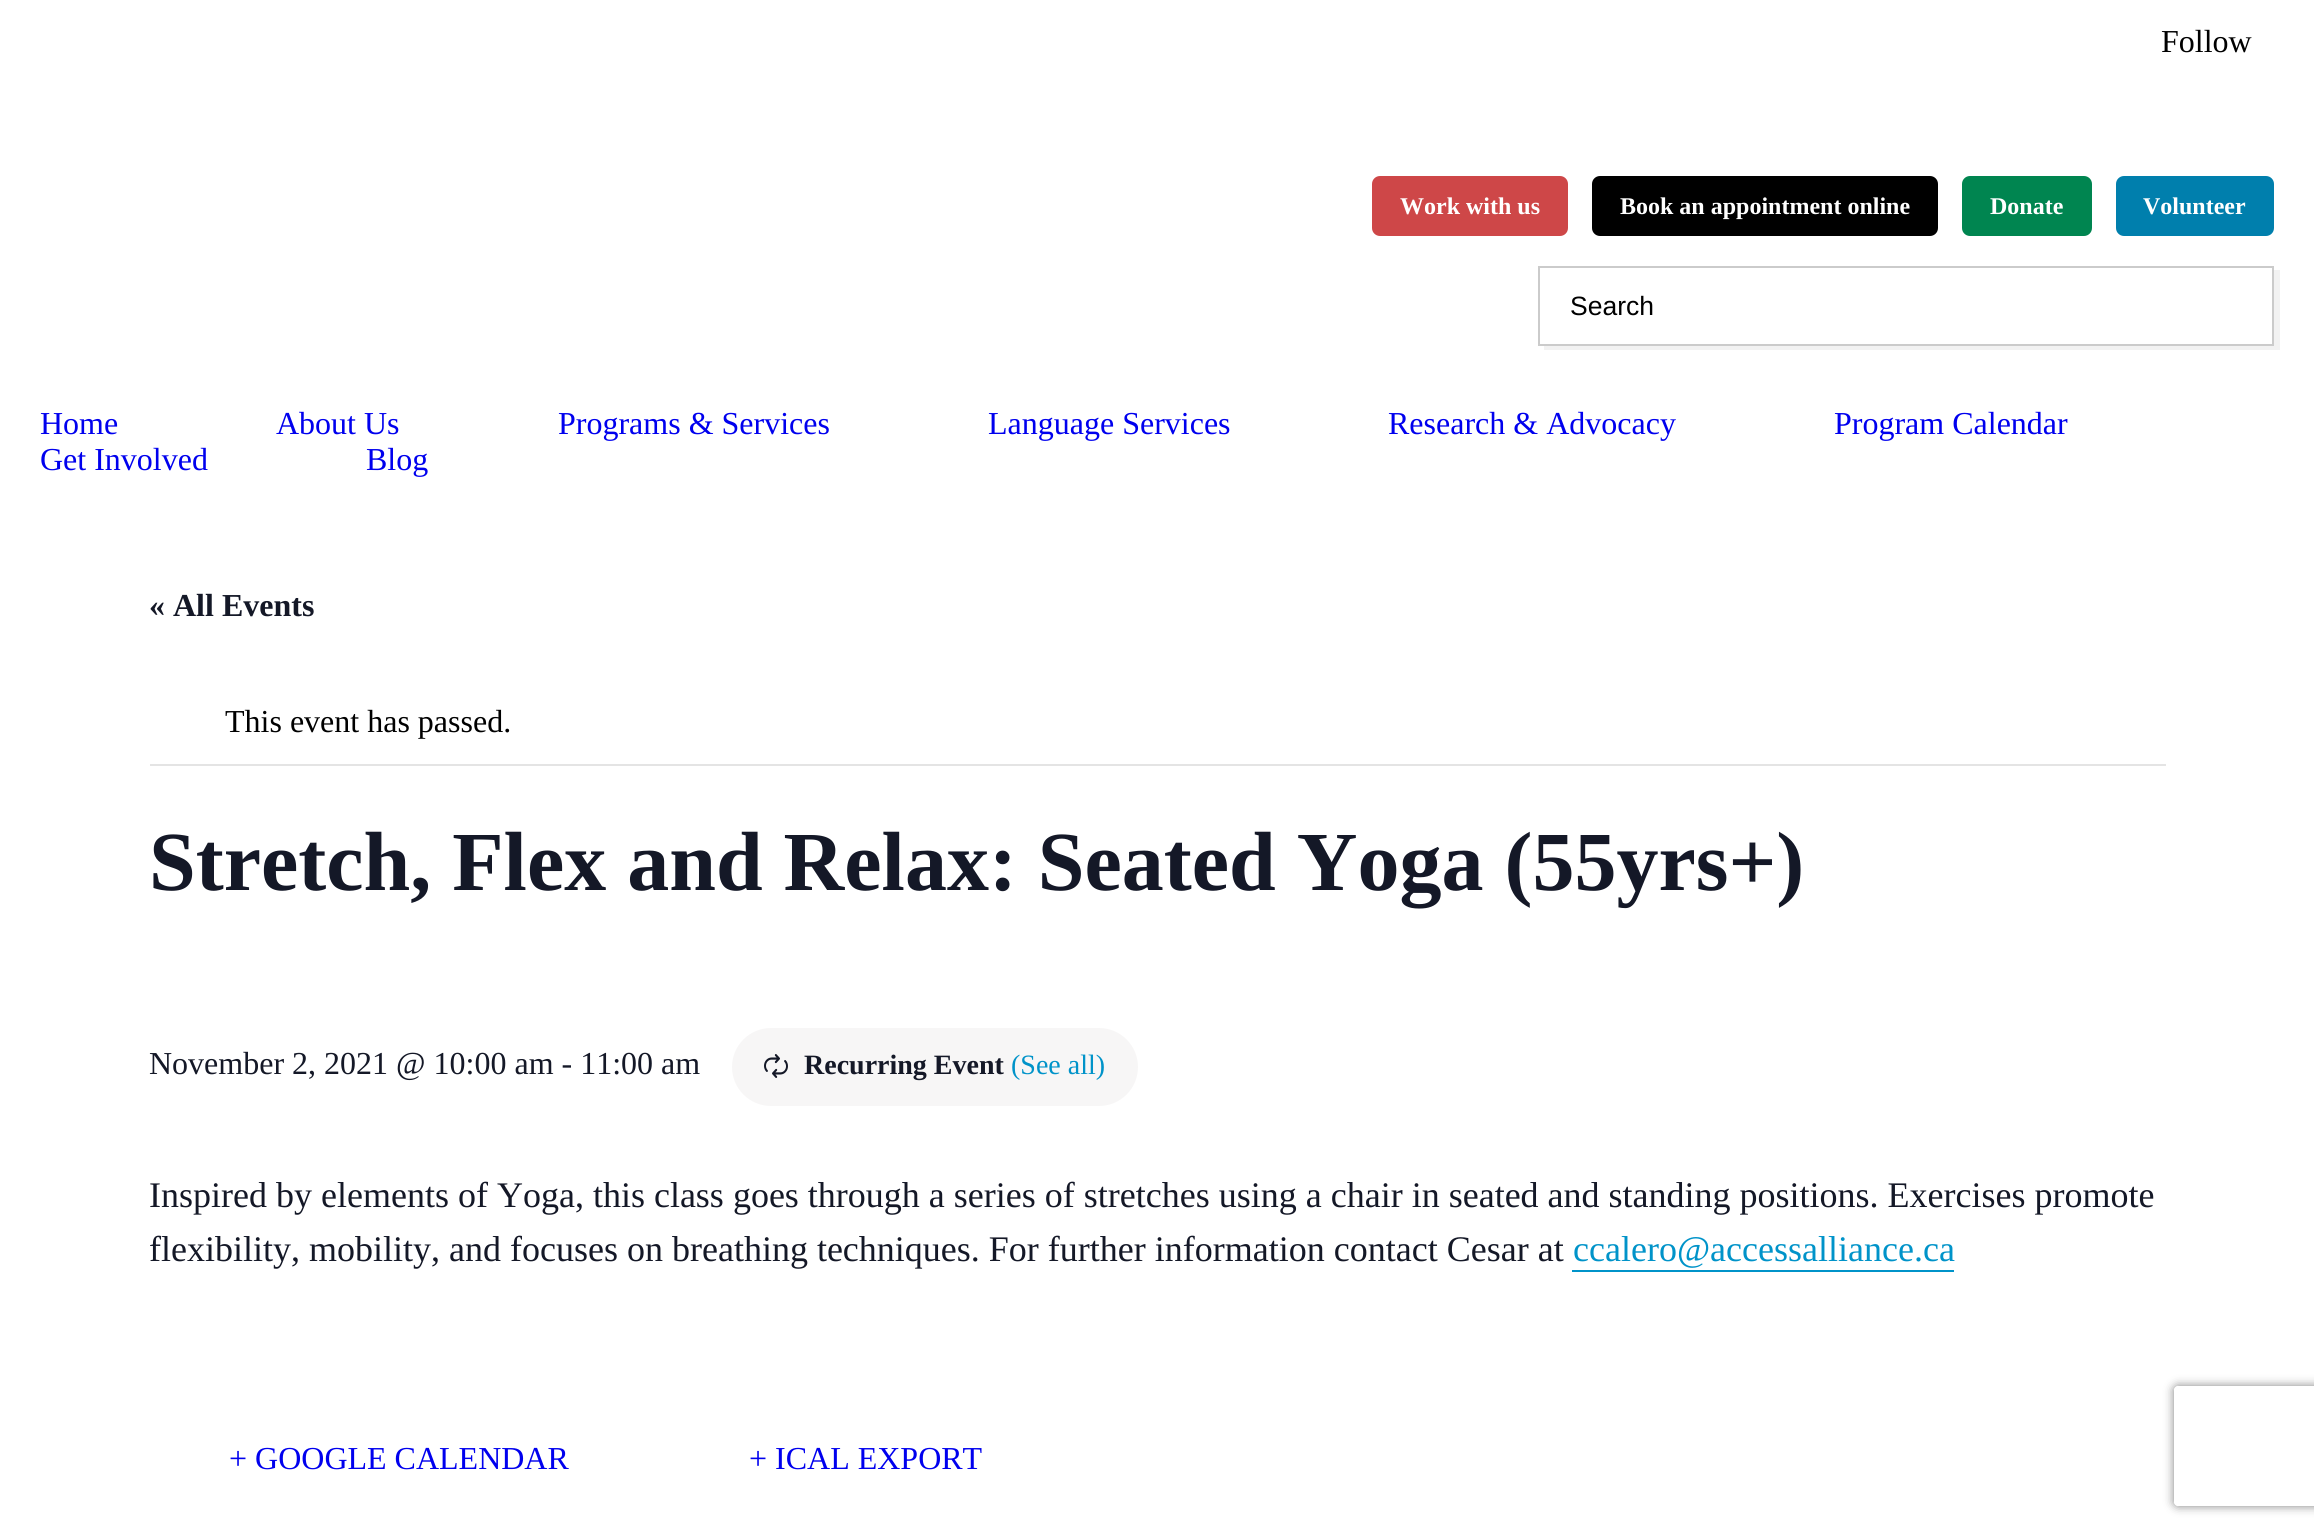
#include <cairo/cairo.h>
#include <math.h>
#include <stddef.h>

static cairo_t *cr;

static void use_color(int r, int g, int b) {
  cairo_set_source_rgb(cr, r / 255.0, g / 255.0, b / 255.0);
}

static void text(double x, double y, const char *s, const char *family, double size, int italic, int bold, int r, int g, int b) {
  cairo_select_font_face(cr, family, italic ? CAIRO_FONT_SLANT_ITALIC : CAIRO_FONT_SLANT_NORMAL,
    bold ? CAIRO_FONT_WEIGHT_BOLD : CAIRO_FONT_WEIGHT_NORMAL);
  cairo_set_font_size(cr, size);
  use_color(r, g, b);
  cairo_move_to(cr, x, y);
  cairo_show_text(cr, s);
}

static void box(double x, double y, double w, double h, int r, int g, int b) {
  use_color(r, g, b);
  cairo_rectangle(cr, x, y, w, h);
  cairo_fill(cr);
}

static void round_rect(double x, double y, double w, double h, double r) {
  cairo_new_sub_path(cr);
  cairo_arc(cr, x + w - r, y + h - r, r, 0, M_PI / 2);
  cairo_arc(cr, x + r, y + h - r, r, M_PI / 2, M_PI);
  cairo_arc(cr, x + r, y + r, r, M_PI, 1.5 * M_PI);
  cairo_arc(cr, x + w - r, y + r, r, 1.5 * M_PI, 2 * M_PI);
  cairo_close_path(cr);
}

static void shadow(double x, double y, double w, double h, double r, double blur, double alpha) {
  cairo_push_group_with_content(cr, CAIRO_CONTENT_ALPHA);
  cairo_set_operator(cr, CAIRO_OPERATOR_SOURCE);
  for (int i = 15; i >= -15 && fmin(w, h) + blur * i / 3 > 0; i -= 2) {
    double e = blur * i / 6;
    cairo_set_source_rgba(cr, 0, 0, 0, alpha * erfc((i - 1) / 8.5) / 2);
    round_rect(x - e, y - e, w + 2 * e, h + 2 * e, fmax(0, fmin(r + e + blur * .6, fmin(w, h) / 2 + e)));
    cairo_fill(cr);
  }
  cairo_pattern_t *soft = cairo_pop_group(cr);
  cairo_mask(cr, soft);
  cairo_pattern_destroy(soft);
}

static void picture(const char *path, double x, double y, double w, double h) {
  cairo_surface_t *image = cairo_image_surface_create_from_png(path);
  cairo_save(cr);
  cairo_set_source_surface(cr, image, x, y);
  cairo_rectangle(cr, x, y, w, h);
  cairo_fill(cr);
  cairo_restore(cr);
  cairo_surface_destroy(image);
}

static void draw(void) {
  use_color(255, 255, 255);
  cairo_paint(cr);
  use_color(206, 71, 72);
  round_rect(1372, 176, 196, 60, 8);
  cairo_fill(cr);
  use_color(0, 0, 0);
  round_rect(1592, 176, 346, 60, 8);
  cairo_fill(cr);
  use_color(0, 133, 80);
  round_rect(1962, 176, 130, 60, 8);
  cairo_fill(cr);
  use_color(0, 127, 173);
  round_rect(2116, 176, 158, 60, 8);
  cairo_fill(cr);
  use_color(242, 242, 242);
  cairo_new_path(cr);
  cairo_move_to(cr, 1544, 346);
  cairo_line_to(cr, 1544, 350);
  cairo_line_to(cr, 2280, 350);
  cairo_line_to(cr, 2280, 270);
  cairo_line_to(cr, 2274, 270);
  cairo_line_to(cr, 2274, 346);
  cairo_close_path(cr);
  cairo_fill(cr);
  cairo_rectangle(cr, 1539, 267, 734, 78);
  use_color(203, 203, 203);
  cairo_stroke(cr);
  box(150, 764, 2016, 2, 228, 228, 228);
  use_color(247, 246, 246);
  round_rect(732, 1028, 406, 78, 39);
  cairo_fill(cr);
  picture("img_01.png", 764, 1054, 24, 24);
  box(1572, 1270, 382, 2, 0, 147, 201);
  cairo_save(cr);
  cairo_set_fill_rule(cr, CAIRO_FILL_RULE_EVEN_ODD);
  cairo_new_path(cr);
  cairo_move_to(cr, 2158, 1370);
  cairo_line_to(cr, 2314, 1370);
  cairo_line_to(cr, 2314, 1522);
  cairo_line_to(cr, 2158, 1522);
  cairo_close_path(cr);
  cairo_move_to(cr, 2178, 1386);
  cairo_line_to(cr, 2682, 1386);
  cairo_curve_to(cr, 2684, 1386, 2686, 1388, 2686, 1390);
  cairo_line_to(cr, 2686, 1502);
  cairo_curve_to(cr, 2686, 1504, 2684, 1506, 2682, 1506);
  cairo_line_to(cr, 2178, 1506);
  cairo_curve_to(cr, 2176, 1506, 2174, 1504, 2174, 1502);
  cairo_line_to(cr, 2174, 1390);
  cairo_curve_to(cr, 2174, 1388, 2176, 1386, 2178, 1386);
  cairo_close_path(cr);
  cairo_clip(cr);
  use_color(128, 128, 128);
  shadow(2174, 1386, 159, 120, 4, 5, 1);
  cairo_restore(cr);
  text(2161, 52, "Follow", "Liberation Serif", 32, 0, 0, 0, 0, 0);
  text(1400, 214, "Work with us", "Liberation Serif", 24, 0, 1, 255, 255, 255);
  text(1620, 214, "Book an appointment online", "Liberation Serif", 24, 0, 1, 255, 255, 255);
  text(1990, 214, "Donate", "Liberation Serif", 24, 0, 1, 255, 255, 255);
  text(2143, 214, "Volunteer", "Liberation Serif", 24, 0, 1, 255, 255, 255);
  text(1570, 315, "Search", "Liberation Sans", 26.5, 0, 0, 0, 0, 0);
  text(40, 434, "Home", "Liberation Serif", 32, 0, 0, 0, 0, 238);
  text(276, 434, "About Us", "Liberation Serif", 32, 0, 0, 0, 0, 238);
  text(558, 434, "Programs & Services", "Liberation Serif", 32, 0, 0, 0, 0, 238);
  text(988, 434, "Language Services", "Liberation Serif", 32, 0, 0, 0, 0, 238);
  text(1388, 434, "Research & Advocacy", "Liberation Serif", 32, 0, 0, 0, 0, 238);
  text(1834, 434, "Program Calendar", "Liberation Serif", 32, 0, 0, 0, 0, 238);
  text(40, 470, "Get Involved", "Liberation Serif", 32, 0, 0, 0, 0, 238);
  text(366, 470, "Blog", "Liberation Serif", 32, 0, 0, 0, 0, 238);
  text(149, 616, "« All Events", "Liberation Serif", 32, 0, 1, 20, 24, 39);
  text(225, 732, "This event has passed.", "Liberation Serif", 32, 0, 0, 0, 0, 0);
  text(149, 890, "Stretch, Flex and Relax: Seated Yoga (55yrs+)", "Liberation Serif", 84, 0, 1, 20, 24, 39);
  text(149, 1074, "November 2, 2021 @ 10:00 am - 11:00 am", "Liberation Serif", 32, 0, 0, 20, 24, 39);
  text(804, 1074, "Recurring Event", "Liberation Serif", 28, 0, 1, 20, 24, 39);
  text(1011, 1074, "(See all)", "Liberation Serif", 28, 0, 0, 0, 147, 201);
  text(149, 1207, "Inspired by elements of Yoga, this class goes through a series of stretches using a chair in seated and standing positions. Exercises promote", "Liberation Serif", 36, 0, 0, 20, 24, 39);
  text(149, 1261, "flexibility, mobility, and focuses on breathing techniques. For further information contact Cesar at", "Liberation Serif", 36, 0, 0, 20, 24, 39);
  text(1573, 1261, "ccalero@accessalliance.ca", "Liberation Serif", 36, 0, 0, 0, 147, 201);
  text(229, 1469, "+ GOOGLE CALENDAR", "Liberation Serif", 32, 0, 0, 0, 0, 238);
  text(749, 1469, "+ ICAL EXPORT", "Liberation Serif", 32, 0, 0, 0, 0, 238);
}

int main(void) {
  cairo_surface_t *surface = cairo_image_surface_create(CAIRO_FORMAT_RGB24, 2314, 1534);
  cr = cairo_create(surface);
  cairo_font_options_t *options = cairo_font_options_create();
  cairo_font_options_set_hint_metrics(options, CAIRO_HINT_METRICS_OFF);
  cairo_font_options_set_hint_style(options, CAIRO_HINT_STYLE_NONE);
  cairo_set_font_options(cr, options);
  cairo_set_miter_limit(cr, 4);
  draw();
  cairo_surface_write_to_png(surface, "out.png");
  cairo_font_options_destroy(options);
  cairo_destroy(cr);
  cairo_surface_destroy(surface);
  return 0;
}
